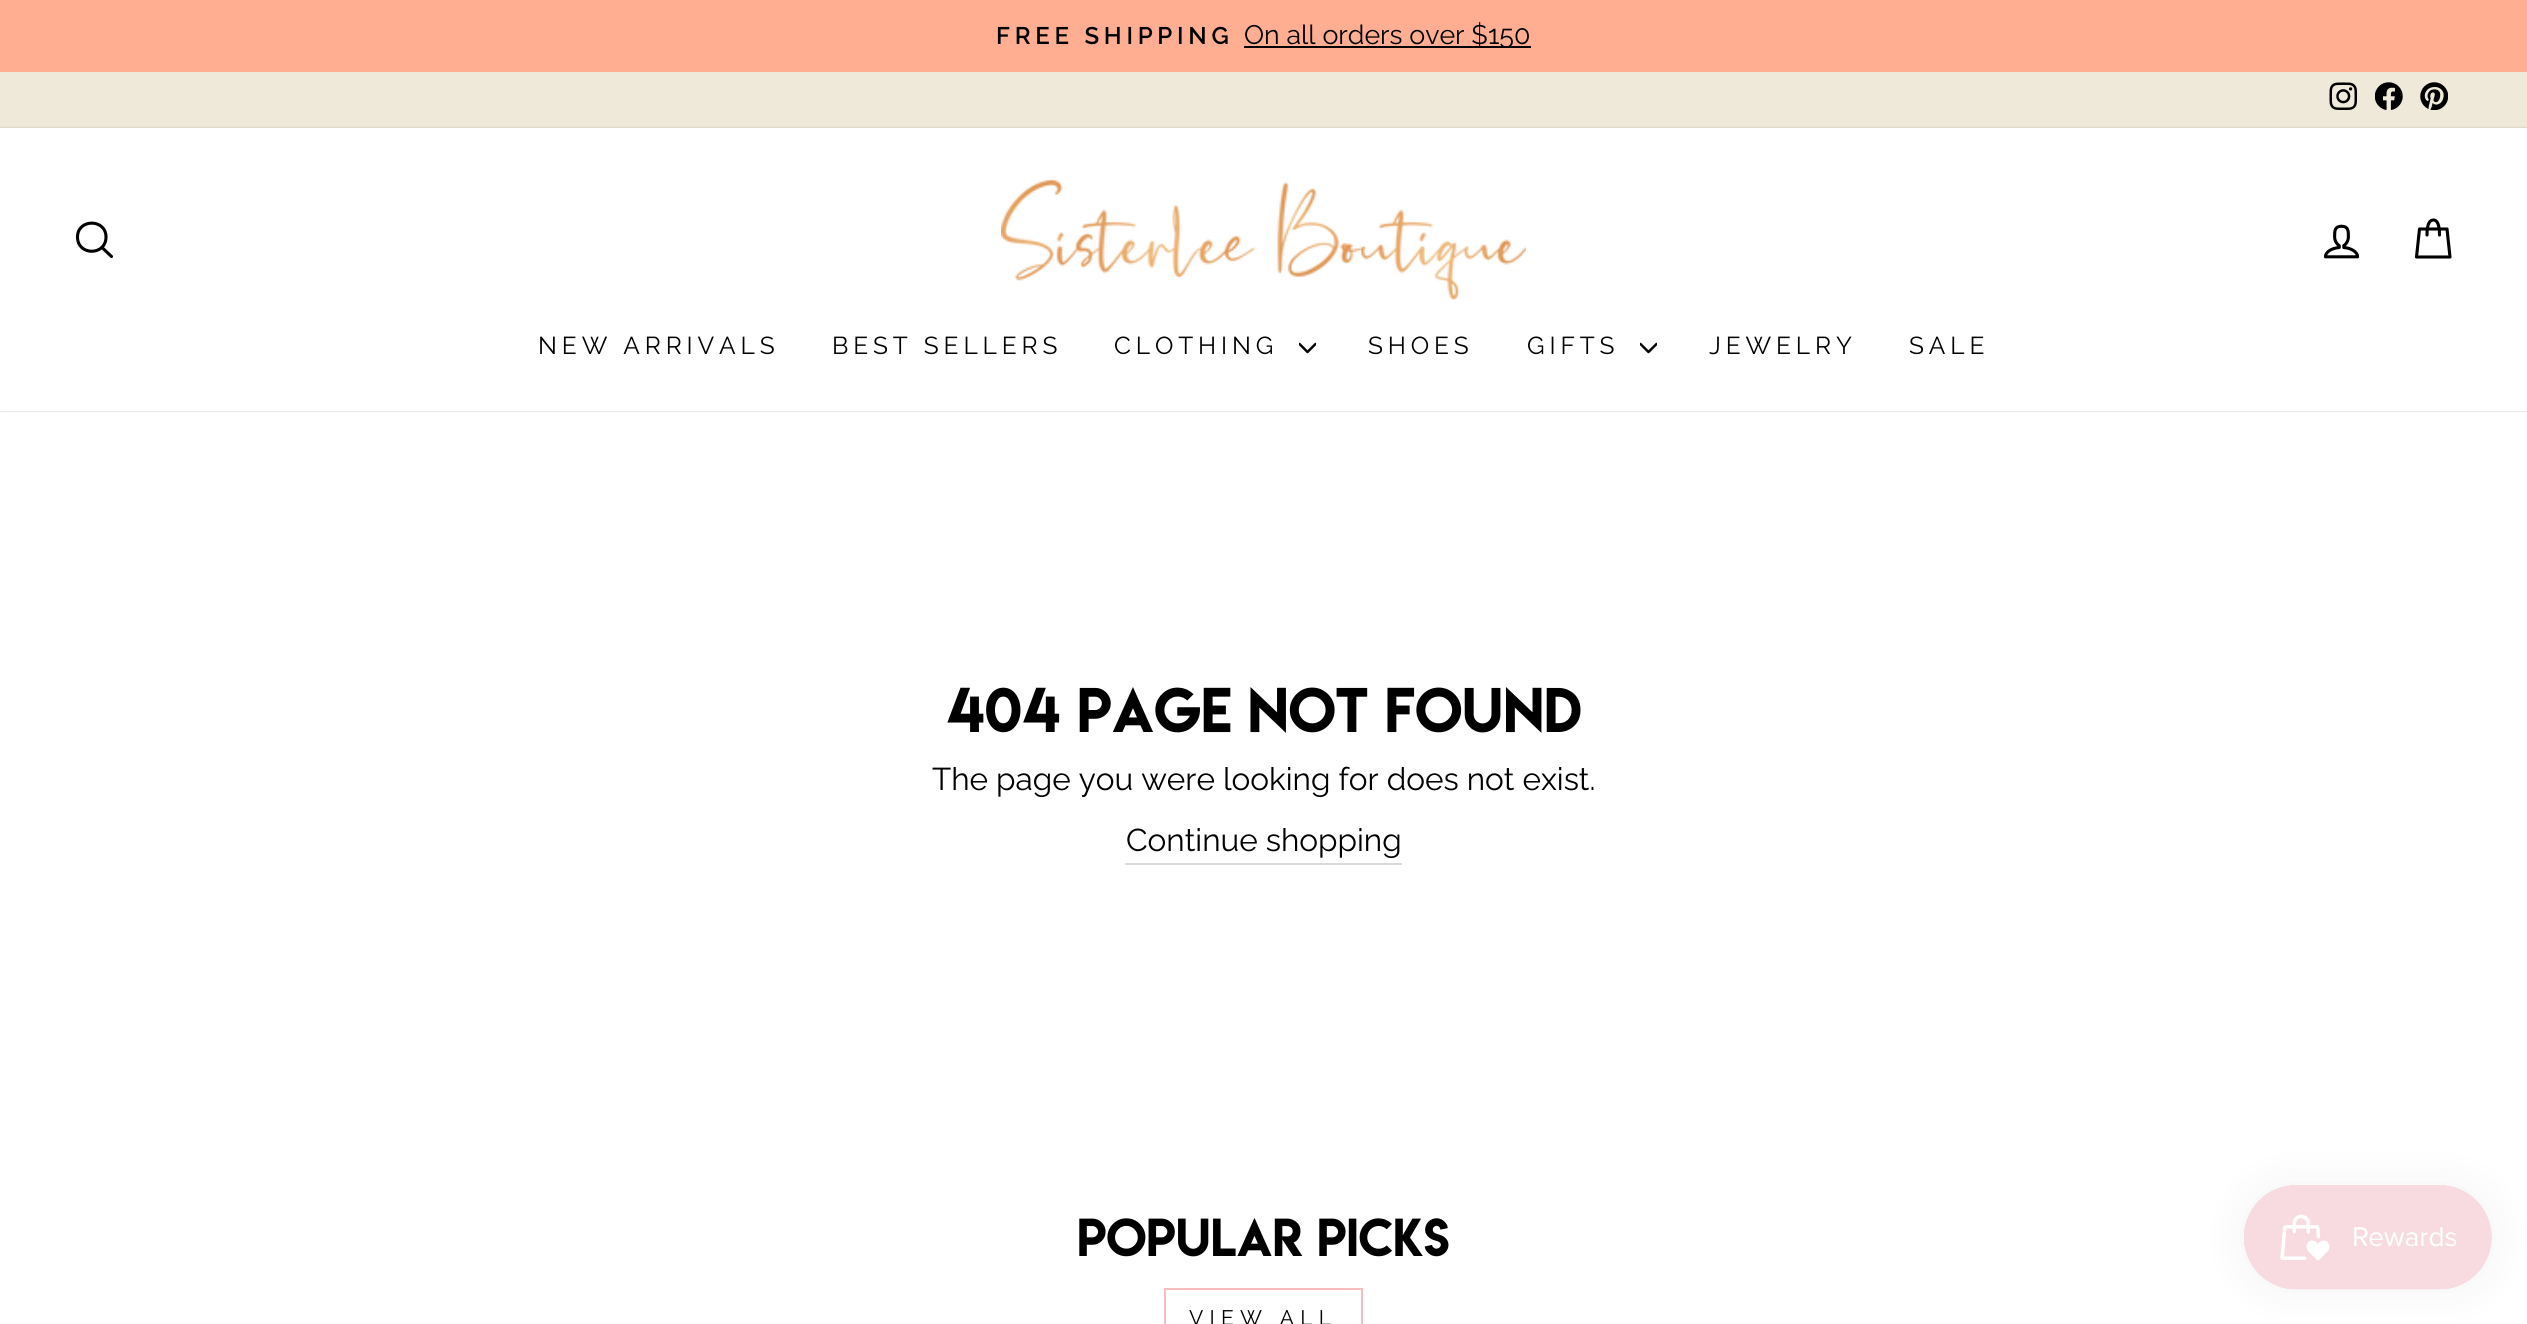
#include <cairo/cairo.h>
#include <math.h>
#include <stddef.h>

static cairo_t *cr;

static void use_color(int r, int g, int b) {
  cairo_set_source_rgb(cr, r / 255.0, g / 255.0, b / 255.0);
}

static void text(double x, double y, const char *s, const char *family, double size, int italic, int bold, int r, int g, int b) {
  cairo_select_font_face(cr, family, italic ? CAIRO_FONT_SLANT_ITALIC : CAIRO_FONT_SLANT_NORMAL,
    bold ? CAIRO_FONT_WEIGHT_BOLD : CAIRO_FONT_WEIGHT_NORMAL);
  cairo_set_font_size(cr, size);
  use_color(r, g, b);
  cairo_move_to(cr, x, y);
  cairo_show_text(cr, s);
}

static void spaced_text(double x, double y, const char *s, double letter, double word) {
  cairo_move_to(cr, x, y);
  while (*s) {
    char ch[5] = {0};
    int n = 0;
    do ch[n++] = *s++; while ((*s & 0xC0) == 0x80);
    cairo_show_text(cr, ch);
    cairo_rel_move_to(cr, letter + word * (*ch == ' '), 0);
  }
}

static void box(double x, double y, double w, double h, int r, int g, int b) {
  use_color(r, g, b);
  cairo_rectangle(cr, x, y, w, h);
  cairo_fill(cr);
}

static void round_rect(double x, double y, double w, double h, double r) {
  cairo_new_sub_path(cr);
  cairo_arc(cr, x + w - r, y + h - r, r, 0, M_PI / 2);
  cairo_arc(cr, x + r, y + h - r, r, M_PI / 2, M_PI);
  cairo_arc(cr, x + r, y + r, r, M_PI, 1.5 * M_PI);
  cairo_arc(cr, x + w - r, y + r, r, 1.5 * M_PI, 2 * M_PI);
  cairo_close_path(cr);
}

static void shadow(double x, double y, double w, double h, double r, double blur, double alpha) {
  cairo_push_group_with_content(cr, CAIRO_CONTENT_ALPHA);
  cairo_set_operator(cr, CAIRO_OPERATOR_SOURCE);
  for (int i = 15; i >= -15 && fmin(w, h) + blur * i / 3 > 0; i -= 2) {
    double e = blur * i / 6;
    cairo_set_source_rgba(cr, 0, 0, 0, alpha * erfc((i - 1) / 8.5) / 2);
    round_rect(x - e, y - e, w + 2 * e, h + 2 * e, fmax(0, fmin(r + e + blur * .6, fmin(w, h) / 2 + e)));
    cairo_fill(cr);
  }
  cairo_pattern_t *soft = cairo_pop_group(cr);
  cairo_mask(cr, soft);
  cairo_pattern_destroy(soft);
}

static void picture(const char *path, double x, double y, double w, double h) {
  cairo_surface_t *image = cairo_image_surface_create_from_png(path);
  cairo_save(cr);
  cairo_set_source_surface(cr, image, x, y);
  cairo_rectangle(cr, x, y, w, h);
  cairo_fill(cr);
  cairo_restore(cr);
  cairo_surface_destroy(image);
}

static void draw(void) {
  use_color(255, 255, 255);
  cairo_paint(cr);
  box(0, 0, 2527, 72, 255, 174, 145);
  box(1244, 46, 287, 2, 0, 0, 0);
  box(0, 72, 2527, 56, 239, 233, 217);
  picture("img_01.png", 2329, 82, 28, 28);
  picture("img_02.png", 2375, 82, 28, 28);
  picture("img_03.png", 2420, 82, 28, 28);
  cairo_save(cr);
  cairo_set_fill_rule(cr, CAIRO_FILL_RULE_EVEN_ODD);
  cairo_new_path(cr);
  cairo_move_to(cr, 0, 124);
  cairo_line_to(cr, 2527, 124);
  cairo_line_to(cr, 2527, 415);
  cairo_line_to(cr, 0, 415);
  cairo_close_path(cr);
  cairo_move_to(cr, 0, 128);
  cairo_line_to(cr, 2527, 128);
  cairo_line_to(cr, 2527, 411);
  cairo_line_to(cr, 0, 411);
  cairo_close_path(cr);
  cairo_clip(cr);
  use_color(0, 0, 0);
  shadow(0, 128, 2527, 283, 0, 1, 0.2);
  cairo_restore(cr);
  cairo_new_path(cr);
  cairo_move_to(cr, 106, 237);
  cairo_curve_to(cr, 106, 256, 77.5, 256, 77.5, 237);
  cairo_curve_to(cr, 77.5, 218.5, 106, 218.5, 106, 237);
  cairo_close_path(cr);
  cairo_move_to(cr, 111.5, 256.5);
  cairo_line_to(cr, 102, 247.5);
  use_color(0, 0, 0);
  cairo_set_line_width(cr, 3.1);
  cairo_set_line_cap(cr, CAIRO_LINE_CAP_ROUND);
  cairo_set_line_join(cr, CAIRO_LINE_JOIN_ROUND);
  cairo_stroke(cr);
  picture("img_04.png", 1001, 179, 525, 121);
  picture("img_05.png", 2323, 224, 37, 35);
  cairo_new_path(cr);
  cairo_move_to(cr, 2427, 235);
  cairo_curve_to(cr, 2427, 223, 2430, 220, 2433.5, 220);
  cairo_curve_to(cr, 2436.5, 220, 2439.5, 223, 2439.5, 235);
  cairo_move_to(cr, 2419.5, 229);
  cairo_line_to(cr, 2447, 229);
  cairo_line_to(cr, 2450, 257);
  cairo_line_to(cr, 2416.5, 257);
  cairo_close_path(cr);
  cairo_stroke(cr);
  cairo_save(cr);
  cairo_rectangle(cr, 1299, 340, 17, 17);
  cairo_clip(cr);
  cairo_new_path(cr);
  cairo_move_to(cr, 1299.5, 344);
  cairo_line_to(cr, 1307.5, 352);
  cairo_line_to(cr, 1315.5, 344);
  cairo_set_line_width(cr, 2.5);
  cairo_stroke(cr);
  cairo_restore(cr);
  cairo_save(cr);
  cairo_rectangle(cr, 1640, 340, 17, 17);
  cairo_clip(cr);
  cairo_new_path(cr);
  cairo_move_to(cr, 1640.5, 344);
  cairo_line_to(cr, 1648.5, 352);
  cairo_line_to(cr, 1656.5, 344);
  cairo_set_line_width(cr, 2.5);
  cairo_stroke(cr);
  cairo_restore(cr);
  box(1125, 863, 277, 2, 217, 217, 217);
  cairo_rectangle(cr, 1165, 1289, 197, 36);
  use_color(250, 189, 189);
  cairo_set_line_width(cr, 2);
  cairo_set_line_cap(cr, CAIRO_LINE_CAP_BUTT);
  cairo_set_line_join(cr, CAIRO_LINE_JOIN_MITER);
  cairo_stroke(cr);
  use_color(0, 0, 0);
  shadow(2244, 1185, 248, 105, 52.5, 22, 0.05);
  picture("img_06.png", 2244, 1185, 248, 105);
  cairo_select_font_face(cr, "Raleway SemiBold", CAIRO_FONT_SLANT_NORMAL, CAIRO_FONT_WEIGHT_NORMAL);
  cairo_set_font_size(cr, 24);
  use_color(0, 0, 0);
  spaced_text(996, 44, "FREE SHIPPING", 4.75, 0);
  text(1244, 44, "On all orders over $150", "Raleway", 26.75, 0, 0, 0, 0, 0);
  cairo_set_font_size(cr, 24.5);
  spaced_text(538, 354, "NEW ARRIVALS", 4.9, 0);
  spaced_text(832, 354, "BEST SELLERS", 4.9, 0);
  spaced_text(1114, 354, "CLOTHING", 4.9, 0);
  spaced_text(1368, 354, "SHOES", 4.9, 0);
  spaced_text(1527, 354, "GIFTS", 4.9, 0);
  spaced_text(1709, 354, "JEWELRY", 4.9, 0);
  spaced_text(1909, 354, "SALE", 4.9, 0);
  text(946, 732, "404 PAGE NOT FOUND", "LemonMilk", 56, 0, 0, 0, 0, 0);
  text(932, 790, "The page you were looking for does not exist.", "Raleway", 31.5, 0, 0, 0, 0, 0);
  text(1126, 851, "Continue shopping", "Raleway", 31.5, 0, 0, 0, 0, 0);
  text(1077, 1256, "POPULAR PICKS", "LemonMilk", 47.5, 0, 0, 0, 0, 0);
  cairo_select_font_face(cr, "Raleway", CAIRO_FONT_SLANT_NORMAL, CAIRO_FONT_WEIGHT_NORMAL);
  cairo_set_font_size(cr, 21);
  spaced_text(1189, 1325, "VIEW ALL", 6.25, 0);
}

int main(void) {
  cairo_surface_t *surface = cairo_image_surface_create(CAIRO_FORMAT_RGB24, 2527, 1324);
  cr = cairo_create(surface);
  cairo_font_options_t *options = cairo_font_options_create();
  cairo_font_options_set_hint_metrics(options, CAIRO_HINT_METRICS_OFF);
  cairo_font_options_set_hint_style(options, CAIRO_HINT_STYLE_NONE);
  cairo_set_font_options(cr, options);
  cairo_set_miter_limit(cr, 4);
  draw();
  cairo_surface_write_to_png(surface, "out.png");
  cairo_font_options_destroy(options);
  cairo_destroy(cr);
  cairo_surface_destroy(surface);
  return 0;
}
